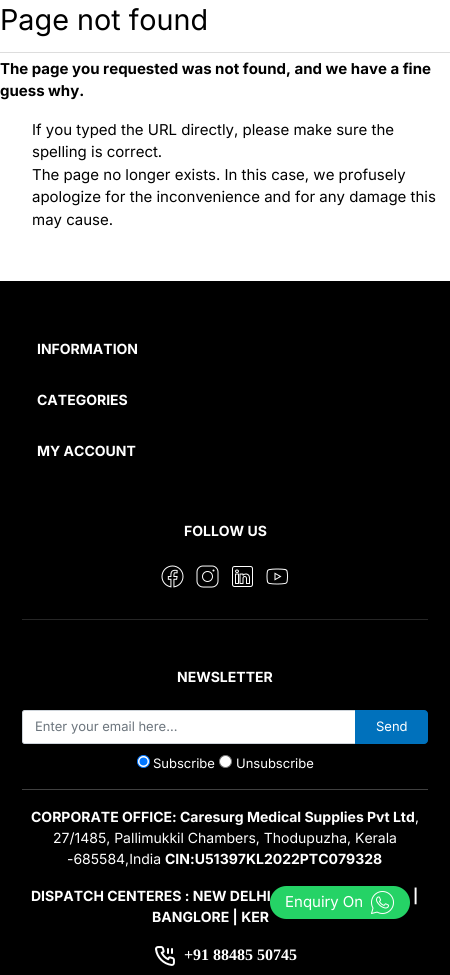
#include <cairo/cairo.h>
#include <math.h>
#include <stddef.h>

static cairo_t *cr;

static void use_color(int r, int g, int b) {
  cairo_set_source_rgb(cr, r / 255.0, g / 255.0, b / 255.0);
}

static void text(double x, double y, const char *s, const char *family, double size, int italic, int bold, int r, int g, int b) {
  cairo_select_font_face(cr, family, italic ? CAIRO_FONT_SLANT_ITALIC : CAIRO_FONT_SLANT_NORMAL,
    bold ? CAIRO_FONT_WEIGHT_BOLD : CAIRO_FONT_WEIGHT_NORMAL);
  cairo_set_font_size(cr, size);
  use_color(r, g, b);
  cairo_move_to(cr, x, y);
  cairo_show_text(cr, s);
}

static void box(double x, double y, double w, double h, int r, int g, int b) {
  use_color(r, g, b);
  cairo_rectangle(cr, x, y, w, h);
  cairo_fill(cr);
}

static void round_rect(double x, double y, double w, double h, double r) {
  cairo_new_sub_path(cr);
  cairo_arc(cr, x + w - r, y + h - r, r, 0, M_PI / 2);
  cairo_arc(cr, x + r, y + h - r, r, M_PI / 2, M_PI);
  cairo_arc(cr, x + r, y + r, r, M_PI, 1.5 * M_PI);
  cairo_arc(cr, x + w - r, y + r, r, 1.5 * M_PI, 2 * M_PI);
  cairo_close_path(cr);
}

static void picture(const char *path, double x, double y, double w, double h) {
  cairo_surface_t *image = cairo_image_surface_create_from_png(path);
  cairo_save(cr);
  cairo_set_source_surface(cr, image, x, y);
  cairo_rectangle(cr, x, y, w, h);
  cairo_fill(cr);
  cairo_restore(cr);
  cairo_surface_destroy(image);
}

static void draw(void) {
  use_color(255, 255, 255);
  cairo_paint(cr);
  box(0, 52, 450, 1, 221, 221, 221);
  box(0, 281, 450, 694, 0, 0, 0);
  box(22, 619, 406, 1, 38, 38, 38);
  picture("img_01.png", 161, 565, 23, 23);
  picture("img_02.png", 196, 565, 23, 23);
  picture("img_03.png", 232, 566, 21, 21);
  picture("img_04.png", 266, 568, 23, 17);
  use_color(255, 255, 255);
  cairo_new_path(cr);
  cairo_move_to(cr, 24.5, 710.5);
  cairo_line_to(cr, 355.5, 710.5);
  cairo_line_to(cr, 355.5, 743.5);
  cairo_line_to(cr, 24.5, 743.5);
  cairo_curve_to(cr, 23.5, 743.5, 22.5, 742.5, 22.5, 741.5);
  cairo_line_to(cr, 22.5, 712.5);
  cairo_curve_to(cr, 22.5, 711.5, 23.5, 710.5, 24.5, 710.5);
  cairo_close_path(cr);
  cairo_fill_preserve(cr);
  use_color(206, 212, 218);
  cairo_set_line_width(cr, 1);
  cairo_stroke(cr);
  use_color(0, 113, 188);
  cairo_new_path(cr);
  cairo_move_to(cr, 355.5, 710.5);
  cairo_line_to(cr, 424, 710.5);
  cairo_curve_to(cr, 426, 710.5, 427.5, 712, 427.5, 714);
  cairo_line_to(cr, 427.5, 740);
  cairo_curve_to(cr, 427.5, 742, 426, 743.5, 424, 743.5);
  cairo_line_to(cr, 355.5, 743.5);
  cairo_close_path(cr);
  cairo_fill_preserve(cr);
  cairo_stroke(cr);
  use_color(255, 255, 255);
  cairo_arc(cr, 143.5, 761.5, 6, 0, 2 * M_PI);
  cairo_fill_preserve(cr);
  use_color(0, 117, 255);
  cairo_stroke(cr);
  cairo_arc(cr, 143.5, 761.5, 4, 0, 2 * M_PI);
  cairo_fill(cr);
  use_color(255, 255, 255);
  cairo_arc(cr, 225.5, 761.5, 6, 0, 2 * M_PI);
  cairo_fill_preserve(cr);
  use_color(118, 118, 118);
  cairo_stroke(cr);
  box(22, 789, 406, 1, 64, 64, 64);
  picture("img_05.png", 155, 946, 20, 20);
  text(0, 30, "Page not found", "Inter", 28.75, 0, 0, 0, 0, 0);
  text(0, 74, "The page you requested was not found, and we have a fine", "Inter", 15, 0, 1, 0, 0, 0);
  text(0, 96, "guess why.", "Inter", 15, 0, 1, 0, 0, 0);
  text(32, 135, "If you typed the URL directly, please make sure the", "Inter", 15, 0, 0, 0, 0, 0);
  text(32, 157, "spelling is correct.", "Inter", 15, 0, 0, 0, 0, 0);
  text(32, 180, "The page no longer exists. In this case, we profusely", "Inter", 15, 0, 0, 0, 0, 0);
  text(32, 202, "apologize for the inconvenience and for any damage this", "Inter", 15, 0, 0, 0, 0, 0);
  text(32, 225, "may cause.", "Inter", 15, 0, 0, 0, 0, 0);
  text(37, 354, "INFORMATION", "Inter", 14, 0, 1, 255, 255, 255);
  text(37, 405, "CATEGORIES", "Inter", 14, 0, 1, 255, 255, 255);
  text(37, 456, "MY ACCOUNT", "Inter", 14, 0, 1, 255, 255, 255);
  text(184, 536, "FOLLOW US", "Inter", 14, 0, 1, 255, 255, 255);
  text(177, 682, "NEWSLETTER", "Inter", 14, 0, 1, 255, 255, 255);
  text(35, 731, "Enter your email here...", "Inter", 13, 0, 0, 108, 117, 125);
  text(376, 731, "Send", "Inter", 13, 0, 0, 255, 255, 255);
  text(153, 768, "Subscribe", "Inter", 13, 0, 0, 255, 255, 255);
  text(236, 768, "Unsubscribe", "Inter", 13, 0, 0, 255, 255, 255);
  text(31, 822, "CORPORATE OFFICE:", "Inter", 14, 0, 1, 255, 255, 255);
  text(180, 822, "Caresurg Medical Supplies Pvt Ltd", "Inter", 14, 0, 1, 255, 255, 255);
  text(415, 822, ",", "Inter", 14, 0, 0, 255, 255, 255);
  text(53, 843, "27/1485, Pallimukkil Chambers, Thodupuzha, Kerala", "Inter", 14, 0, 0, 255, 255, 255);
  text(67, 864, "-685584,India", "Inter", 14, 0, 0, 255, 255, 255);
  text(165, 864, "CIN:U51397KL2022PTC079328", "Inter", 14, 0, 1, 255, 255, 255);
  text(31, 901, "DISPATCH CENTERES : NEW DELHI", "Inter", 14, 0, 1, 255, 255, 255);
  text(413, 901, "|", "Inter", 14, 0, 1, 255, 255, 255);
  text(152, 922, "BANGLORE | KER", "Inter", 14, 0, 1, 255, 255, 255);
  text(184, 960, "+91 88485 50745", "Liberation Serif", 16, 0, 1, 255, 255, 255);
  use_color(37, 211, 102);
  round_rect(270, 886, 140, 33, 16.5);
  cairo_fill(cr);
  text(285, 907, "Enquiry On", "Inter", 15, 0, 0, 255, 255, 255);
  picture("img_06.png", 371, 891, 23, 23);
}

int main(void) {
  cairo_surface_t *surface = cairo_image_surface_create(CAIRO_FORMAT_RGB24, 450, 975);
  cr = cairo_create(surface);
  cairo_font_options_t *options = cairo_font_options_create();
  cairo_font_options_set_hint_metrics(options, CAIRO_HINT_METRICS_OFF);
  cairo_font_options_set_hint_style(options, CAIRO_HINT_STYLE_NONE);
  cairo_set_font_options(cr, options);
  cairo_set_miter_limit(cr, 4);
  draw();
  cairo_surface_write_to_png(surface, "out.png");
  cairo_font_options_destroy(options);
  cairo_destroy(cr);
  cairo_surface_destroy(surface);
  return 0;
}
